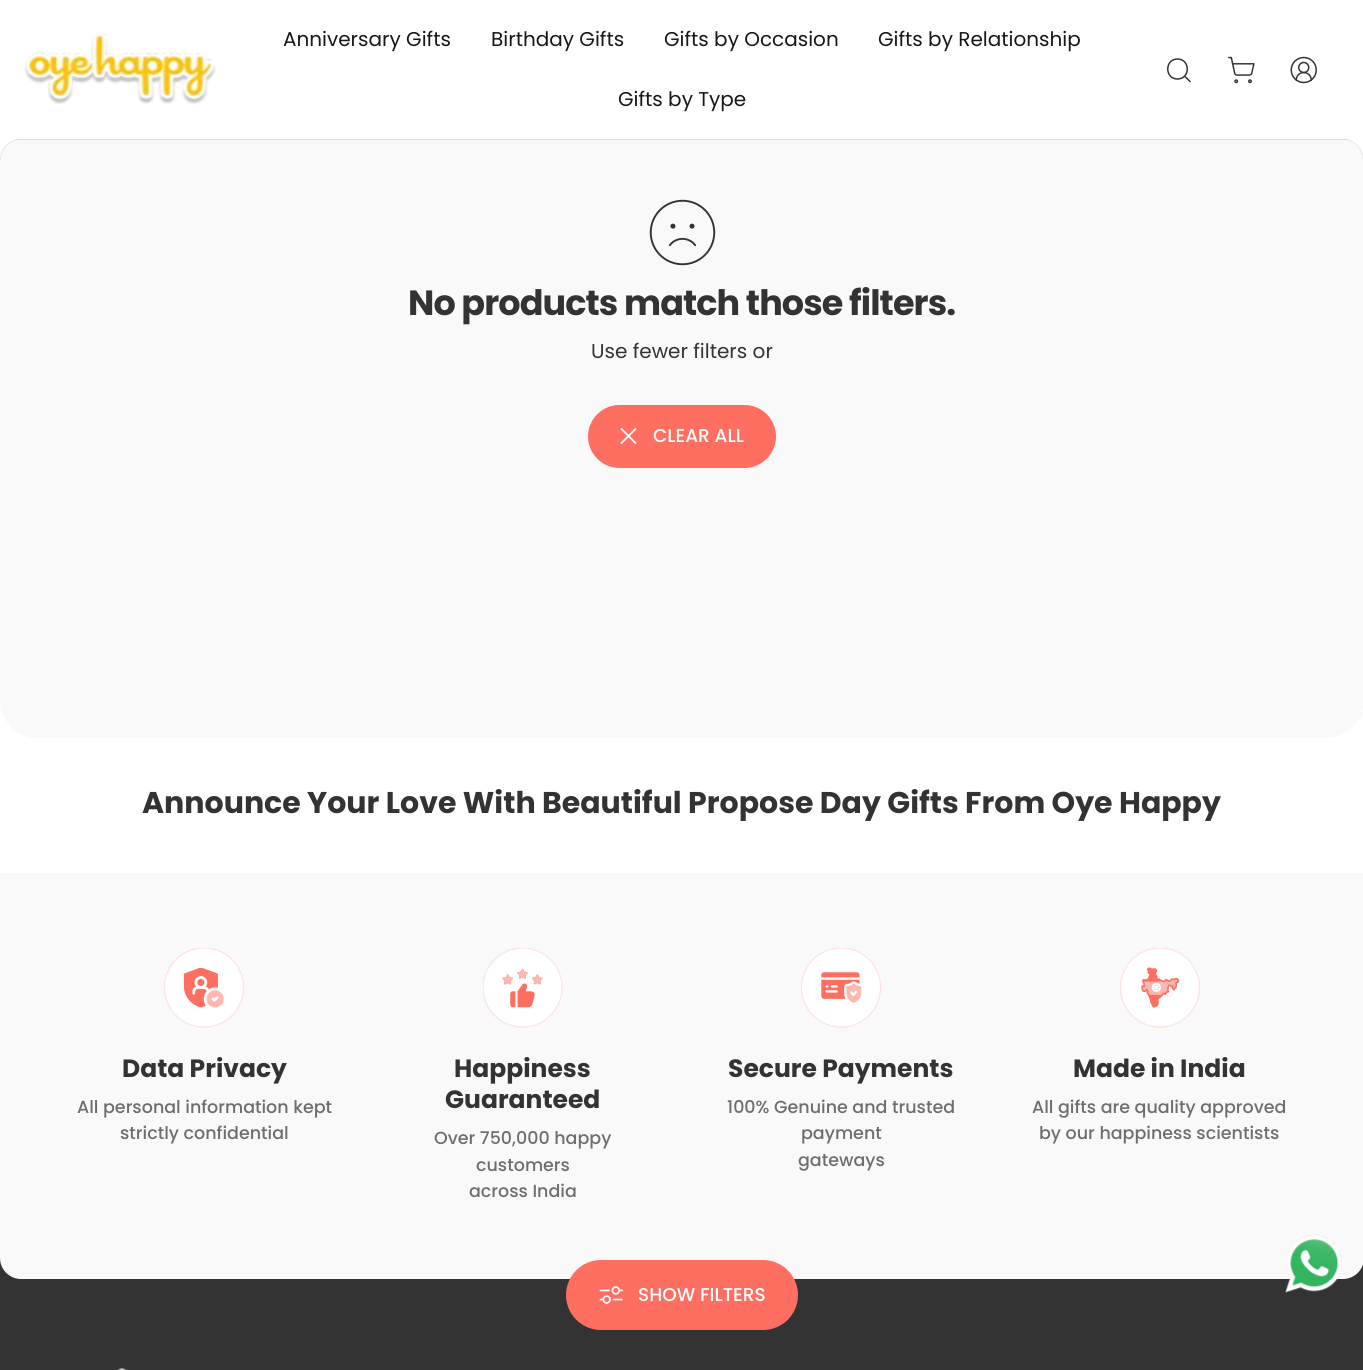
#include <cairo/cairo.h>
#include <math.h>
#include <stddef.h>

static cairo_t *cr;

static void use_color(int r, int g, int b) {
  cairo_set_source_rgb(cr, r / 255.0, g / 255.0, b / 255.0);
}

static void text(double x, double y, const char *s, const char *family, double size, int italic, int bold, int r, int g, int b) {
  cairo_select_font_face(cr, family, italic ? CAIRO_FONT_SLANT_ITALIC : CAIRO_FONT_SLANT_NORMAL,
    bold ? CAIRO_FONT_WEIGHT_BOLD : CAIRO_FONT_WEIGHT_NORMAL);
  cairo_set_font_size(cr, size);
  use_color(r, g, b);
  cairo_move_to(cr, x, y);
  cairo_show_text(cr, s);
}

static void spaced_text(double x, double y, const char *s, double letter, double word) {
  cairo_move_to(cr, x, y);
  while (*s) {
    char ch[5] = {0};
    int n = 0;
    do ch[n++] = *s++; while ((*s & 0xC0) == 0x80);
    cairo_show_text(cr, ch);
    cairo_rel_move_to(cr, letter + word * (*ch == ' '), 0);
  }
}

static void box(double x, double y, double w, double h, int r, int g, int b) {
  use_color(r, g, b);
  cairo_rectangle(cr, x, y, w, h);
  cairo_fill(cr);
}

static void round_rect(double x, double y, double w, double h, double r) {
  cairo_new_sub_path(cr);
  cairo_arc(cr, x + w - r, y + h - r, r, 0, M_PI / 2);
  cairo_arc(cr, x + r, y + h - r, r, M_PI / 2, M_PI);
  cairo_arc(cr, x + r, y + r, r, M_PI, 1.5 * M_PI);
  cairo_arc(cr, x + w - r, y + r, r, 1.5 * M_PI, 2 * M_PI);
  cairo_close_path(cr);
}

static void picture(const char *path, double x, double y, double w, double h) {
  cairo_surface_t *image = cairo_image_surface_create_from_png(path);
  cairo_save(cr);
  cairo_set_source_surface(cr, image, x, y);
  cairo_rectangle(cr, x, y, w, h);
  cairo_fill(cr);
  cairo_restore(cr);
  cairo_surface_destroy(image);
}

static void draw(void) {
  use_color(255, 255, 255);
  cairo_paint(cr);
  use_color(249, 249, 249);
  round_rect(0, -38, 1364, 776, 38);
  cairo_fill(cr);
  box(0, 0, 1363, 139, 255, 255, 255);
  picture("img_01.png", 25, 32, 191, 72);
  cairo_new_path(cr);
  cairo_move_to(cr, 1177.5, 79);
  cairo_curve_to(cr, 1190.5, 79, 1190.5, 59, 1177.5, 59);
  cairo_curve_to(cr, 1164.5, 59, 1164.5, 79, 1177.5, 79);
  cairo_close_path(cr);
  cairo_move_to(cr, 1190, 81.5);
  cairo_line_to(cr, 1184.5, 76);
  use_color(51, 51, 51);
  cairo_set_line_width(cr, 1.5);
  cairo_set_line_cap(cr, CAIRO_LINE_CAP_ROUND);
  cairo_set_line_join(cr, CAIRO_LINE_JOIN_ROUND);
  cairo_stroke(cr);
  picture("img_02.png", 1228, 56, 27, 28);
  picture("img_03.png", 1290, 56, 27, 28);
  box(15, 139, 1334, 1, 223, 223, 223);
  picture("img_04.png", 0, 139, 21, 21);
  picture("img_05.png", 1343, 139, 20, 20);
  picture("img_06.png", 649, 199, 67, 67);
  use_color(255, 111, 97);
  round_rect(588, 405, 188, 63, 31.5);
  cairo_fill(cr);
  cairo_new_path(cr);
  cairo_move_to(cr, 621.5, 443);
  cairo_line_to(cr, 635.5, 429);
  cairo_move_to(cr, 621.5, 429);
  cairo_line_to(cr, 635.5, 443);
  use_color(255, 255, 255);
  cairo_set_line_width(cr, 1.8);
  cairo_stroke(cr);
  box(0, 1258, 1363, 112, 51, 51, 51);
  use_color(249, 249, 249);
  cairo_new_path(cr);
  cairo_move_to(cr, 0, 873);
  cairo_line_to(cr, 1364, 873);
  cairo_line_to(cr, 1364, 1258);
  cairo_curve_to(cr, 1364, 1269.5, 1354.5, 1279, 1343, 1279);
  cairo_line_to(cr, 21, 1279);
  cairo_curve_to(cr, 9.5, 1279, 0, 1269.5, 0, 1258);
  cairo_close_path(cr);
  cairo_fill(cr);
  use_color(255, 111, 97);
  round_rect(566, 1260, 232, 70, 35);
  cairo_fill(cr);
  picture("img_07.png", 599, 1286, 24, 18);
  picture("img_08.png", 164, 948, 80, 80);
  picture("img_09.png", 483, 948, 80, 80);
  picture("img_10.png", 801, 948, 80, 80);
  picture("img_11.png", 1120, 948, 80, 80);
  picture("img_12.png", 116, 1368, 11, 2);
  picture("img_13.png", 1285, 1235, 57, 58);
  text(283, 46, "Anniversary Gifts", "Poppins", 20, 0, 0, 23, 23, 23);
  text(491, 46, "Birthday Gifts", "Poppins", 20, 0, 0, 23, 23, 23);
  text(664, 46, "Gifts by Occasion", "Poppins", 20, 0, 0, 23, 23, 23);
  text(878, 46, "Gifts by Relationship", "Poppins", 20, 0, 0, 23, 23, 23);
  text(618, 106, "Gifts by Type", "Poppins", 20, 0, 0, 23, 23, 23);
  cairo_select_font_face(cr, "Poppins", CAIRO_FONT_SLANT_NORMAL, CAIRO_FONT_WEIGHT_BOLD);
  cairo_set_font_size(cr, 35);
  use_color(51, 51, 51);
  spaced_text(408, 315, "No products match those filters.", -0.9, 0);
  text(591, 358, "Use fewer filters or", "Poppins", 20, 0, 0, 51, 51, 51);
  text(653, 442, "CLEAR ALL", "Poppins Medium", 18.5, 0, 0, 255, 255, 255);
  text(638, 1301, "SHOW FILTERS", "Poppins Medium", 18.5, 0, 0, 255, 255, 255);
  text(142, 813, "Announce Your Love With Beautiful Propose Day Gifts From Oye Happy", "Poppins", 30, 0, 1, 51, 51, 51);
  text(122, 1077, "Data Privacy", "Poppins", 25, 0, 1, 51, 51, 51);
  text(77, 1113, "All personal information kept", "Poppins Medium", 17.5, 0, 0, 110, 110, 110);
  text(120, 1139, "strictly confidential", "Poppins Medium", 17.5, 0, 0, 110, 110, 110);
  text(454, 1077, "Happiness", "Poppins", 25, 0, 1, 51, 51, 51);
  text(445, 1108, "Guaranteed", "Poppins", 25, 0, 1, 51, 51, 51);
  text(434, 1144, "Over 750,000 happy", "Poppins Medium", 17.5, 0, 0, 110, 110, 110);
  text(476, 1171, "customers", "Poppins Medium", 17.5, 0, 0, 110, 110, 110);
  text(469, 1197, "across India", "Poppins Medium", 17.5, 0, 0, 110, 110, 110);
  text(728, 1077, "Secure Payments", "Poppins", 25, 0, 1, 51, 51, 51);
  text(727, 1113, "100% Genuine and trusted", "Poppins Medium", 17.5, 0, 0, 110, 110, 110);
  text(801, 1139, "payment", "Poppins Medium", 17.5, 0, 0, 110, 110, 110);
  text(798, 1166, "gateways", "Poppins Medium", 17.5, 0, 0, 110, 110, 110);
  text(1073, 1077, "Made in India", "Poppins", 25, 0, 1, 51, 51, 51);
  text(1032, 1113, "All gifts are quality approved", "Poppins Medium", 17.5, 0, 0, 110, 110, 110);
  text(1039, 1139, "by our happiness scientists", "Poppins Medium", 17.5, 0, 0, 110, 110, 110);
}

int main(void) {
  cairo_surface_t *surface = cairo_image_surface_create(CAIRO_FORMAT_RGB24, 1363, 1370);
  cr = cairo_create(surface);
  cairo_font_options_t *options = cairo_font_options_create();
  cairo_font_options_set_hint_metrics(options, CAIRO_HINT_METRICS_OFF);
  cairo_font_options_set_hint_style(options, CAIRO_HINT_STYLE_NONE);
  cairo_set_font_options(cr, options);
  cairo_set_miter_limit(cr, 4);
  draw();
  cairo_surface_write_to_png(surface, "out.png");
  cairo_font_options_destroy(options);
  cairo_destroy(cr);
  cairo_surface_destroy(surface);
  return 0;
}
